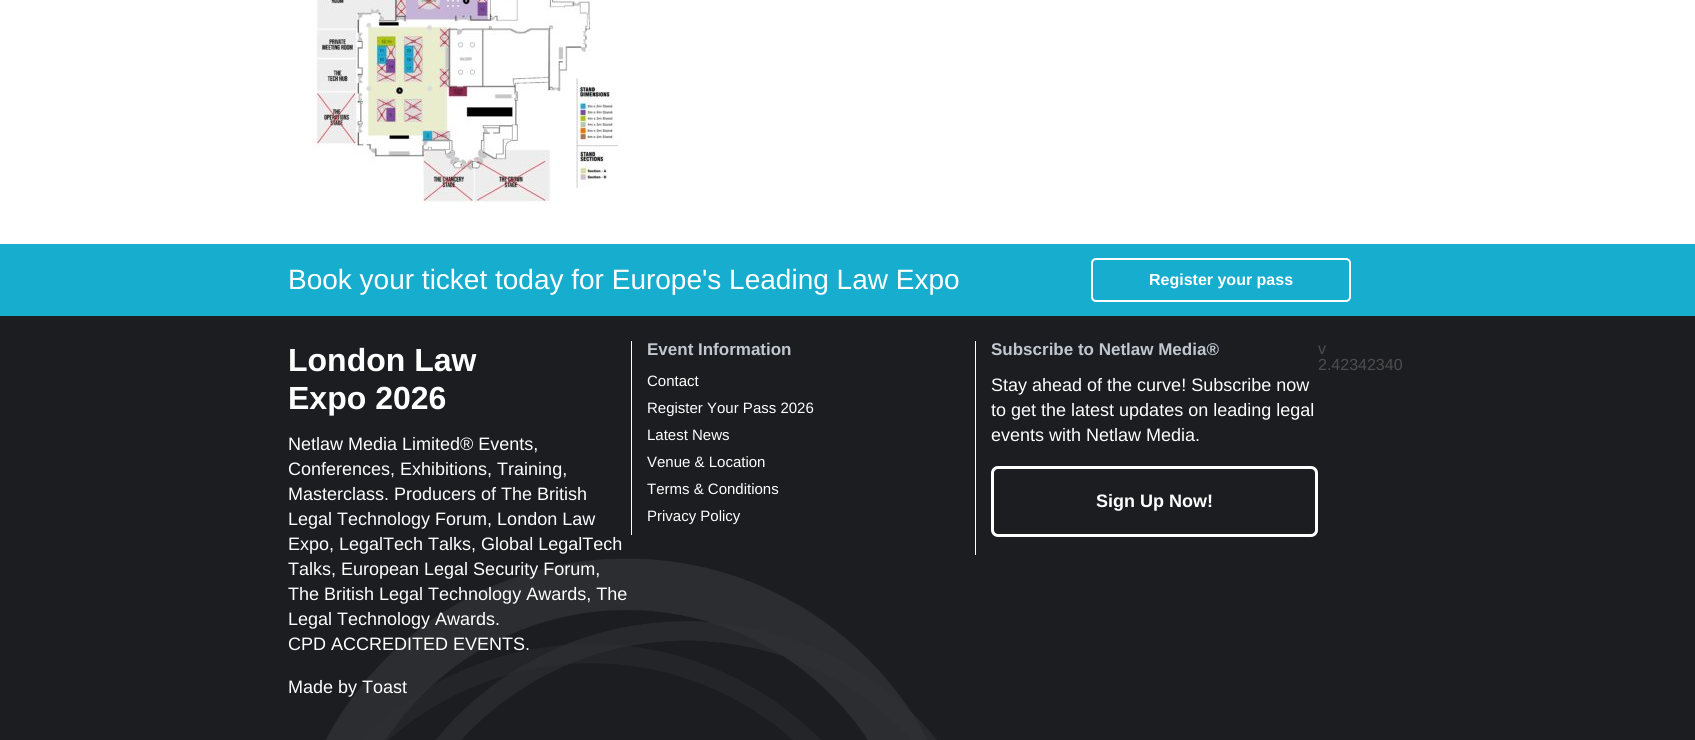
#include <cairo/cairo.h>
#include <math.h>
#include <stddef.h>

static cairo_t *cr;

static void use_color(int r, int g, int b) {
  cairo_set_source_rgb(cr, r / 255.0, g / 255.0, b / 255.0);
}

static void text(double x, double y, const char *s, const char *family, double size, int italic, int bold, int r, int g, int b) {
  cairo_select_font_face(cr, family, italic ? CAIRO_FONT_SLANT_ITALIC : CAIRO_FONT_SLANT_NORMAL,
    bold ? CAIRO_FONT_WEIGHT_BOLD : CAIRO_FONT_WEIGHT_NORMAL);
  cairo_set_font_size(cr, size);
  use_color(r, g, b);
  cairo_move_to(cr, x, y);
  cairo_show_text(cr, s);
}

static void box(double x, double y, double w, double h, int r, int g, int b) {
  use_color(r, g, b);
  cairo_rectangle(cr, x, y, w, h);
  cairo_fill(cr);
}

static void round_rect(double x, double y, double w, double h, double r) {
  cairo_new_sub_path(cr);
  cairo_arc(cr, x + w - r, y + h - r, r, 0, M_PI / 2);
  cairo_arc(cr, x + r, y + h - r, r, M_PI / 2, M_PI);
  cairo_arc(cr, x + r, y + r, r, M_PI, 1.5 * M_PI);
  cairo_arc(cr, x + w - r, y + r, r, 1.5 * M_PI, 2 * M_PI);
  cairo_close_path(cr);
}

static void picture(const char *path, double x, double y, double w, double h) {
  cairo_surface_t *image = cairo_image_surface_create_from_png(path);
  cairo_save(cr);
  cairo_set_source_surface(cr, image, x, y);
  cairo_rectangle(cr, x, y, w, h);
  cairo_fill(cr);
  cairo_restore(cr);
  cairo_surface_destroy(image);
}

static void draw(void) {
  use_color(255, 255, 255);
  cairo_paint(cr);
  picture("img_01.png", 312, 0, 309, 203);
  box(0, 244, 1695, 72, 23, 173, 206);
  round_rect(1092, 259, 258, 42, 4);
  use_color(255, 255, 255);
  cairo_stroke(cr);
  box(0, 316, 1695, 424, 27, 29, 33);
  picture("img_02.png", 326, 558, 611, 182);
  box(631, 341, 1, 194, 255, 255, 255);
  box(975, 341, 1, 214, 255, 255, 255);
  round_rect(992.5, 467.5, 324, 68, 5.5);
  cairo_set_line_width(cr, 3);
  cairo_stroke(cr);
  text(288, 289, "Book your ticket today for Europe's Leading Law Expo", "Liberation Sans", 28, 0, 0, 255, 255, 255);
  text(1149, 285, "Register your pass", "Liberation Sans", 16, 0, 1, 255, 255, 255);
  text(288, 371, "London Law", "Liberation Sans", 32, 0, 1, 255, 255, 255);
  text(288, 409, "Expo 2026", "Liberation Sans", 32, 0, 1, 255, 255, 255);
  text(288, 450, "Netlaw Media Limited® Events,", "Liberation Sans", 18, 0, 0, 255, 255, 255);
  text(288, 475, "Conferences, Exhibitions, Training,", "Liberation Sans", 18, 0, 0, 255, 255, 255);
  text(288, 500, "Masterclass. Producers of The British", "Liberation Sans", 18, 0, 0, 255, 255, 255);
  text(288, 525, "Legal Technology Forum, London Law", "Liberation Sans", 18, 0, 0, 255, 255, 255);
  text(288, 550, "Expo, LegalTech Talks, Global LegalTech", "Liberation Sans", 18, 0, 0, 255, 255, 255);
  text(288, 575, "Talks, European Legal Security Forum,", "Liberation Sans", 18, 0, 0, 255, 255, 255);
  text(288, 600, "The British Legal Technology Awards, The", "Liberation Sans", 18, 0, 0, 255, 255, 255);
  text(288, 625, "Legal Technology Awards.", "Liberation Sans", 18, 0, 0, 255, 255, 255);
  text(288, 650, "CPD ACCREDITED EVENTS.", "Liberation Sans", 18, 0, 0, 255, 255, 255);
  text(288, 693, "Made by Toast", "Liberation Sans", 18, 0, 0, 255, 255, 255);
  text(647, 355, "Event Information", "Liberation Sans", 17, 0, 1, 193, 199, 207);
  text(647, 386, "Contact", "Liberation Sans", 15, 0, 0, 255, 255, 255);
  text(647, 413, "Register Your Pass 2026", "Liberation Sans", 15, 0, 0, 255, 255, 255);
  text(647, 440, "Latest News", "Liberation Sans", 15, 0, 0, 255, 255, 255);
  text(647, 467, "Venue & Location", "Liberation Sans", 15, 0, 0, 255, 255, 255);
  text(647, 494, "Terms & Conditions", "Liberation Sans", 15, 0, 0, 255, 255, 255);
  text(647, 521, "Privacy Policy", "Liberation Sans", 15, 0, 0, 255, 255, 255);
  text(991, 355, "Subscribe to Netlaw Media®", "Liberation Sans", 17, 0, 1, 193, 199, 207);
  text(991, 391, "Stay ahead of the curve! Subscribe now", "Liberation Sans", 18, 0, 0, 255, 255, 255);
  text(991, 416, "to get the latest updates on leading legal", "Liberation Sans", 18, 0, 0, 255, 255, 255);
  text(991, 441, "events with Netlaw Media.", "Liberation Sans", 18, 0, 0, 255, 255, 255);
  text(1096, 507, "Sign Up Now!", "Liberation Sans", 18, 0, 1, 255, 255, 255);
  text(1318, 354, "v", "Liberation Sans", 16, 0, 0, 77, 77, 77);
  text(1318, 370, "2.42342340", "Liberation Sans", 16, 0, 0, 77, 77, 77);
}

int main(void) {
  cairo_surface_t *surface = cairo_image_surface_create(CAIRO_FORMAT_RGB24, 1695, 740);
  cr = cairo_create(surface);
  cairo_font_options_t *options = cairo_font_options_create();
  cairo_font_options_set_hint_metrics(options, CAIRO_HINT_METRICS_OFF);
  cairo_font_options_set_hint_style(options, CAIRO_HINT_STYLE_NONE);
  cairo_set_font_options(cr, options);
  cairo_set_miter_limit(cr, 4);
  draw();
  cairo_surface_write_to_png(surface, "out.png");
  cairo_font_options_destroy(options);
  cairo_destroy(cr);
  cairo_surface_destroy(surface);
  return 0;
}
